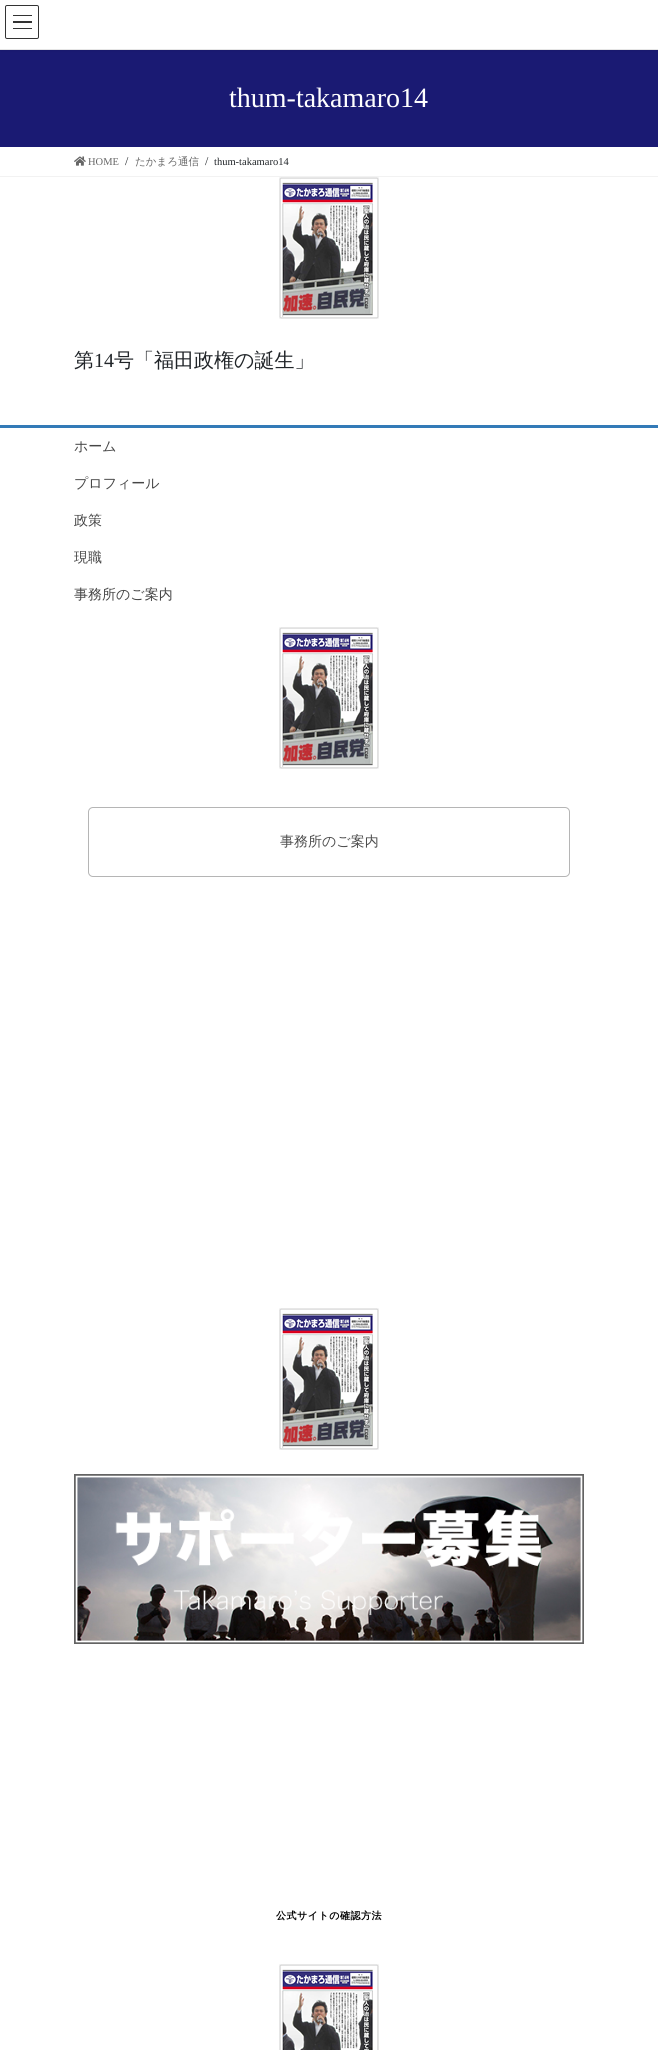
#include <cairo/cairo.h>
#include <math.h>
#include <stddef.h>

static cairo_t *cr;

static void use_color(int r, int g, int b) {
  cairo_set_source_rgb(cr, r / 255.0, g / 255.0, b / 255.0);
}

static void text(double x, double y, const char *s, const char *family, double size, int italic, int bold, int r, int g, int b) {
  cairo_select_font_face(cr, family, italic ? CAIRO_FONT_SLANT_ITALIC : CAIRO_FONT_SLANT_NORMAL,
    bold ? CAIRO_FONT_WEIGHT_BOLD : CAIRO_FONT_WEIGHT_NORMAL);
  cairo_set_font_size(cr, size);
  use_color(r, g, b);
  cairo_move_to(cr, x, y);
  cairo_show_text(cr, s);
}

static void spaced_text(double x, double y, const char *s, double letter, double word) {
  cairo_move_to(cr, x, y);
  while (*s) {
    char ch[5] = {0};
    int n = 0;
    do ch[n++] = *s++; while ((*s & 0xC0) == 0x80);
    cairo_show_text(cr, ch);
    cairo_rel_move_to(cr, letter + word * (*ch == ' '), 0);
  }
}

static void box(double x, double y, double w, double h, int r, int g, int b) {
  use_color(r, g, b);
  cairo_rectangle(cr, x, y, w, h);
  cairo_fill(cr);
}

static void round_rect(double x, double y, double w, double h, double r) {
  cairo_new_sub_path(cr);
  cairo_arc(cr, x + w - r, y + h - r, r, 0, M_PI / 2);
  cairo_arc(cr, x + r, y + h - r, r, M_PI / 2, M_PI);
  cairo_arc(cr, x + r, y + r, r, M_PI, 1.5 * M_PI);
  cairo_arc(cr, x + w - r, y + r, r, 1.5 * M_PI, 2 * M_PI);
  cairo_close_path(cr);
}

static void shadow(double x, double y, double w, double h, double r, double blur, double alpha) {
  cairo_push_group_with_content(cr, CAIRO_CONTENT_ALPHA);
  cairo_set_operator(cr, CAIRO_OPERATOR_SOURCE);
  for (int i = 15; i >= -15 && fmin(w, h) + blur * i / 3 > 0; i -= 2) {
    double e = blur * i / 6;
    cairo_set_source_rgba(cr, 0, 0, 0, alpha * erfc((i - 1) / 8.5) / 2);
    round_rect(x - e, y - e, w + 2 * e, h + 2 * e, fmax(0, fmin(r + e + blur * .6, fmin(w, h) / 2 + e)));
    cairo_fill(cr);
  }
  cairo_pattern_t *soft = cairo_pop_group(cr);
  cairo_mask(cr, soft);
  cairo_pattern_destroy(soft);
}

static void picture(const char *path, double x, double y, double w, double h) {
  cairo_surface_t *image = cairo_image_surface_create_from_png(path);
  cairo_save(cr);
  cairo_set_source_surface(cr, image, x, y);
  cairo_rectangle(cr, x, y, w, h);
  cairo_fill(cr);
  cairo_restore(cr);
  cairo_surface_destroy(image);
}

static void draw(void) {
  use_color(255, 255, 255);
  cairo_paint(cr);
  box(0, 50, 658, 97, 26, 26, 115);
  use_color(0, 0, 0);
  shadow(0, 1, 658, 49, 0, 1.5, 0.1);
  box(0, 0, 658, 49, 255, 255, 255);
  box(0, 49, 658, 1, 229, 229, 229);
  box(13, 15, 19, 1, 51, 51, 51);
  box(13, 21, 19, 2, 51, 51, 51);
  box(13, 28, 19, 1, 51, 51, 51);
  round_rect(5.5, 5.5, 33, 33, 1.5);
  cairo_set_line_width(cr, 1);
  cairo_stroke(cr);
  box(0, 176, 658, 1, 242, 242, 242);
  picture("img_01.png", 74, 156, 12, 10);
  picture("img_02.png", 279, 177, 100, 142);
  box(0, 425, 658, 3, 51, 122, 183);
  picture("img_02.png", 279, 627, 100, 142);
  round_rect(88.5, 807.5, 481, 69, 4.5);
  use_color(181, 181, 181);
  cairo_stroke(cr);
  picture("img_02.png", 279, 1308, 100, 142);
  picture("img_03.png", 74, 1474, 510, 170);
  picture("img_04.png", 279, 1964, 100, 86);
  text(229, 107, "thum-takamaro14", "Liberation Serif", 28, 0, 0, 255, 255, 255);
  text(88, 165, "HOME", "Liberation Serif", 10.5, 0, 0, 102, 102, 102);
  text(125, 165, "/", "Liberation Serif", 12, 0, 0, 33, 37, 41);
  text(135, 165, "たかまろ通信", "WenQuanYi Zen Hei Medium", 10.5, 0, 0, 102, 102, 102);
  text(205, 165, "/", "Liberation Serif", 12, 0, 0, 33, 37, 41);
  text(214, 165, "thum-takamaro14", "Liberation Serif", 10.5, 0, 0, 33, 37, 41);
  text(74, 367, "第", "WenQuanYi Zen Hei Medium", 20, 0, 0, 33, 37, 41);
  text(94, 367, "14", "Liberation Serif", 20, 0, 0, 33, 37, 41);
  text(114, 367, "号「福田政権の誕生」", "WenQuanYi Zen Hei Medium", 20, 0, 0, 33, 37, 41);
  text(74, 451, "ホーム", "WenQuanYi Zen Hei Medium", 14, 0, 0, 70, 70, 70);
  text(74, 488, "プロフィール", "WenQuanYi Zen Hei Medium", 14, 0, 0, 70, 70, 70);
  text(74, 525, "政策", "WenQuanYi Zen Hei Medium", 14, 0, 0, 70, 70, 70);
  text(74, 562, "現職", "WenQuanYi Zen Hei Medium", 14, 0, 0, 70, 70, 70);
  text(74, 599, "事務所のご案内", "WenQuanYi Zen Hei Medium", 14, 0, 0, 70, 70, 70);
  text(280, 846, "事務所のご案内", "WenQuanYi Zen Hei Medium", 14, 0, 0, 77, 77, 77);
  cairo_select_font_face(cr, "WenQuanYi Zen Hei", CAIRO_FONT_SLANT_NORMAL, CAIRO_FONT_WEIGHT_BOLD);
  cairo_set_font_size(cr, 10);
  use_color(0, 0, 0);
  spaced_text(276, 1919, "公式サイトの確認方法", 0.5, 0);
}

int main(void) {
  cairo_surface_t *surface = cairo_image_surface_create(CAIRO_FORMAT_RGB24, 658, 2050);
  cr = cairo_create(surface);
  cairo_font_options_t *options = cairo_font_options_create();
  cairo_font_options_set_hint_metrics(options, CAIRO_HINT_METRICS_OFF);
  cairo_font_options_set_hint_style(options, CAIRO_HINT_STYLE_NONE);
  cairo_set_font_options(cr, options);
  cairo_set_miter_limit(cr, 4);
  draw();
  cairo_surface_write_to_png(surface, "out.png");
  cairo_font_options_destroy(options);
  cairo_destroy(cr);
  cairo_surface_destroy(surface);
  return 0;
}
